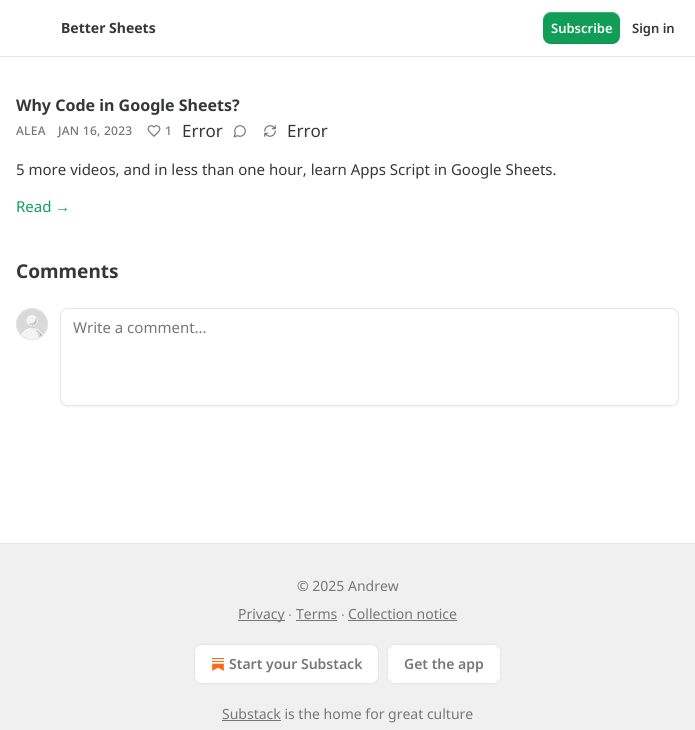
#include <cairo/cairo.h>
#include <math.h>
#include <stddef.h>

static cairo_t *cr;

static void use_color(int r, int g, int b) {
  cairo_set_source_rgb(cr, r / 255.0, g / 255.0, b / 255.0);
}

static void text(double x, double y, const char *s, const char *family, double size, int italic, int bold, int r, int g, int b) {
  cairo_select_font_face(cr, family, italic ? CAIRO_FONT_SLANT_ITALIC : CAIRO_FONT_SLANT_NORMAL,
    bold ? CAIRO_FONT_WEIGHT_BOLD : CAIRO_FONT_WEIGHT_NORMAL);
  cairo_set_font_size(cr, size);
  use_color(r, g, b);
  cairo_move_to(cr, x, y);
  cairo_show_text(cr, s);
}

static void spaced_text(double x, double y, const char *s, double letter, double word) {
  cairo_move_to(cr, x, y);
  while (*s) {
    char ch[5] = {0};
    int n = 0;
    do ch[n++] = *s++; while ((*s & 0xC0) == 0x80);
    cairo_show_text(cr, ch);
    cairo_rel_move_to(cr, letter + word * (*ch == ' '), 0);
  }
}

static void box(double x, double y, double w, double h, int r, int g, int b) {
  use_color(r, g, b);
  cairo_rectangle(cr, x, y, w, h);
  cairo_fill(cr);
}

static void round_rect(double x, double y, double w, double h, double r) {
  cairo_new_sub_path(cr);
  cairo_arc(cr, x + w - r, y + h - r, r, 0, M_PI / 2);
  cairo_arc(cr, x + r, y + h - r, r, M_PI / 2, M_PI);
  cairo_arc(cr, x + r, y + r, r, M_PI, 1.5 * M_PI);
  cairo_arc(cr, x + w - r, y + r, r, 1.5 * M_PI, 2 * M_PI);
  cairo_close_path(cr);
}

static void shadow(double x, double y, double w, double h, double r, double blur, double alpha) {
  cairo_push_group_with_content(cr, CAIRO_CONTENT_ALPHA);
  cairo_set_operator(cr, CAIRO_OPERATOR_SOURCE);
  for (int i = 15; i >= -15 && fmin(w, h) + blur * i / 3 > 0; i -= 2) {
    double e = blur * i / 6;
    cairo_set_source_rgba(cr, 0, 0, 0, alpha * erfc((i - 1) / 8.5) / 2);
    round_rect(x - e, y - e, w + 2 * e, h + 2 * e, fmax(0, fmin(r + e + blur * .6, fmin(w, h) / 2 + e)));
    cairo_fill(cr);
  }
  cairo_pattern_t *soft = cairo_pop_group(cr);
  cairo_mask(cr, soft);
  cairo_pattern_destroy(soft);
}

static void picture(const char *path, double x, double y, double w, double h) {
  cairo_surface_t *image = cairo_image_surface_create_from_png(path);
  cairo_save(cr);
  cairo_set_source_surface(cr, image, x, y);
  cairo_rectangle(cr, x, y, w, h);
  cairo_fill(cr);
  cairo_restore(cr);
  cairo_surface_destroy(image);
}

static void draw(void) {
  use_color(255, 255, 255);
  cairo_paint(cr);
  box(0, 56, 695, 1, 230, 230, 230);
  use_color(15, 157, 88);
  round_rect(543, 12, 77, 32, 8);
  cairo_fill(cr);
  cairo_set_source_rgba(cr, 0, 0, 0, 0.1);
  cairo_new_path(cr);
  cairo_move_to(cr, 543, 35);
  cairo_curve_to(cr, 543, 46, 553, 44, 561, 44);
  cairo_line_to(cr, 602, 44);
  cairo_curve_to(cr, 610, 44, 620, 46, 620, 35);
  cairo_curve_to(cr, 620, 39, 616, 43, 612, 43);
  cairo_line_to(cr, 551, 43);
  cairo_curve_to(cr, 547, 43, 543, 39, 543, 35);
  cairo_close_path(cr);
  cairo_fill(cr);
  cairo_set_source_rgba(cr, 1, 1, 1, 0.2);
  cairo_new_path(cr);
  cairo_move_to(cr, 551, 13);
  cairo_line_to(cr, 612, 13);
  cairo_curve_to(cr, 616, 13, 620, 17, 620, 21);
  cairo_curve_to(cr, 620, 10, 610, 12, 602, 12);
  cairo_line_to(cr, 561, 12);
  cairo_curve_to(cr, 553, 12, 543, 10, 543, 21);
  cairo_curve_to(cr, 543, 17, 547, 13, 551, 13);
  cairo_close_path(cr);
  cairo_fill(cr);
  picture("img_01.png", 147, 125, 14, 12);
  picture("img_02.png", 233, 125, 13, 13);
  picture("img_03.png", 264, 125, 12, 12);
  cairo_arc(cr, 32, 324, 15.5, 0, 2 * M_PI);
  use_color(230, 230, 230);
  cairo_set_line_width(cr, 1);
  cairo_stroke(cr);
  picture("img_04.png", 16, 308, 32, 32);
  cairo_arc(cr, 32, 324, 15.5, 0, 2 * M_PI);
  cairo_stroke(cr);
  use_color(0, 0, 0);
  shadow(60, 309, 619, 98, 8, 1, 0.05);
  use_color(255, 255, 255);
  round_rect(60.5, 308.5, 618, 97, 7.5);
  cairo_fill_preserve(cr);
  use_color(230, 230, 230);
  cairo_stroke(cr);
  box(0, 544, 695, 186, 240, 240, 240);
  box(0, 543, 695, 1, 230, 230, 230);
  box(238, 620, 47, 1, 119, 119, 119);
  box(296, 620, 41, 1, 119, 119, 119);
  box(348, 620, 109, 1, 119, 119, 119);
  use_color(255, 255, 255);
  round_rect(194.5, 644.5, 184, 39, 7.5);
  cairo_fill_preserve(cr);
  use_color(230, 230, 230);
  cairo_stroke(cr);
  picture("img_05.png", 212, 658, 12, 13);
  use_color(255, 255, 255);
  round_rect(387.5, 644.5, 113, 39, 7.5);
  cairo_fill_preserve(cr);
  use_color(230, 230, 230);
  cairo_stroke(cr);
  box(222, 720, 59, 1, 119, 119, 119);
  text(61, 33, "Better Sheets", "Noto Sans", 14, 0, 1, 54, 55, 55);
  text(551, 33, "Subscribe", "Noto Sans SemiBold", 13, 0, 0, 255, 255, 255);
  text(632, 33, "Sign in", "Noto Sans SemiBold", 13, 0, 0, 54, 55, 55);
  text(16, 111, "Why Code in Google Sheets?", "Noto Sans", 16, 0, 1, 54, 55, 55);
  cairo_select_font_face(cr, "Noto Sans Medium", CAIRO_FONT_SLANT_NORMAL, CAIRO_FONT_WEIGHT_NORMAL);
  cairo_set_font_size(cr, 12);
  use_color(119, 119, 119);
  spaced_text(16, 135, "ALEA", 0.25, 0);
  spaced_text(58, 135, "JAN 16, 2023", 0.25, 0);
  spaced_text(165, 135, "1", 0.25, 0);
  text(182, 137, "Error", "Noto Sans", 17, 0, 0, 54, 55, 55);
  text(287, 137, "Error", "Noto Sans", 17, 0, 0, 54, 55, 55);
  text(16, 175, "5 more videos, and in less than one hour, learn Apps Script in Google Sheets.", "Noto Sans", 15, 0, 0, 54, 55, 55);
  text(16, 212, "Read", "Noto Sans", 15, 0, 0, 15, 157, 88);
  text(55, 212, "→", "Liberation Sans", 15, 0, 0, 15, 157, 88);
  text(16, 278, "Comments", "Noto Sans", 19, 0, 1, 54, 55, 55);
  text(73, 333, "Write a comment...", "Noto Sans", 15, 0, 0, 119, 119, 119);
  text(297, 591, "© 2025 Andrew", "Noto Sans", 14, 0, 0, 119, 119, 119);
  text(238, 619, "Privacy", "Noto Sans", 14, 0, 0, 119, 119, 119);
  text(288, 619, "∙", "Liberation Sans", 14, 0, 0, 119, 119, 119);
  text(296, 619, "Terms", "Noto Sans", 14, 0, 0, 119, 119, 119);
  text(341, 619, "∙", "Liberation Sans", 14, 0, 0, 119, 119, 119);
  text(348, 619, "Collection notice", "Noto Sans", 14, 0, 0, 119, 119, 119);
  text(229, 669, "Start your Substack", "Noto Sans SemiBold", 14, 0, 0, 119, 119, 119);
  text(404, 669, "Get the app", "Noto Sans SemiBold", 14, 0, 0, 119, 119, 119);
  text(222, 719, "Substack is the home for great culture", "Noto Sans", 14, 0, 0, 119, 119, 119);
}

int main(void) {
  cairo_surface_t *surface = cairo_image_surface_create(CAIRO_FORMAT_RGB24, 695, 730);
  cr = cairo_create(surface);
  cairo_font_options_t *options = cairo_font_options_create();
  cairo_font_options_set_hint_metrics(options, CAIRO_HINT_METRICS_OFF);
  cairo_font_options_set_hint_style(options, CAIRO_HINT_STYLE_NONE);
  cairo_set_font_options(cr, options);
  cairo_set_miter_limit(cr, 4);
  draw();
  cairo_surface_write_to_png(surface, "out.png");
  cairo_font_options_destroy(options);
  cairo_destroy(cr);
  cairo_surface_destroy(surface);
  return 0;
}
